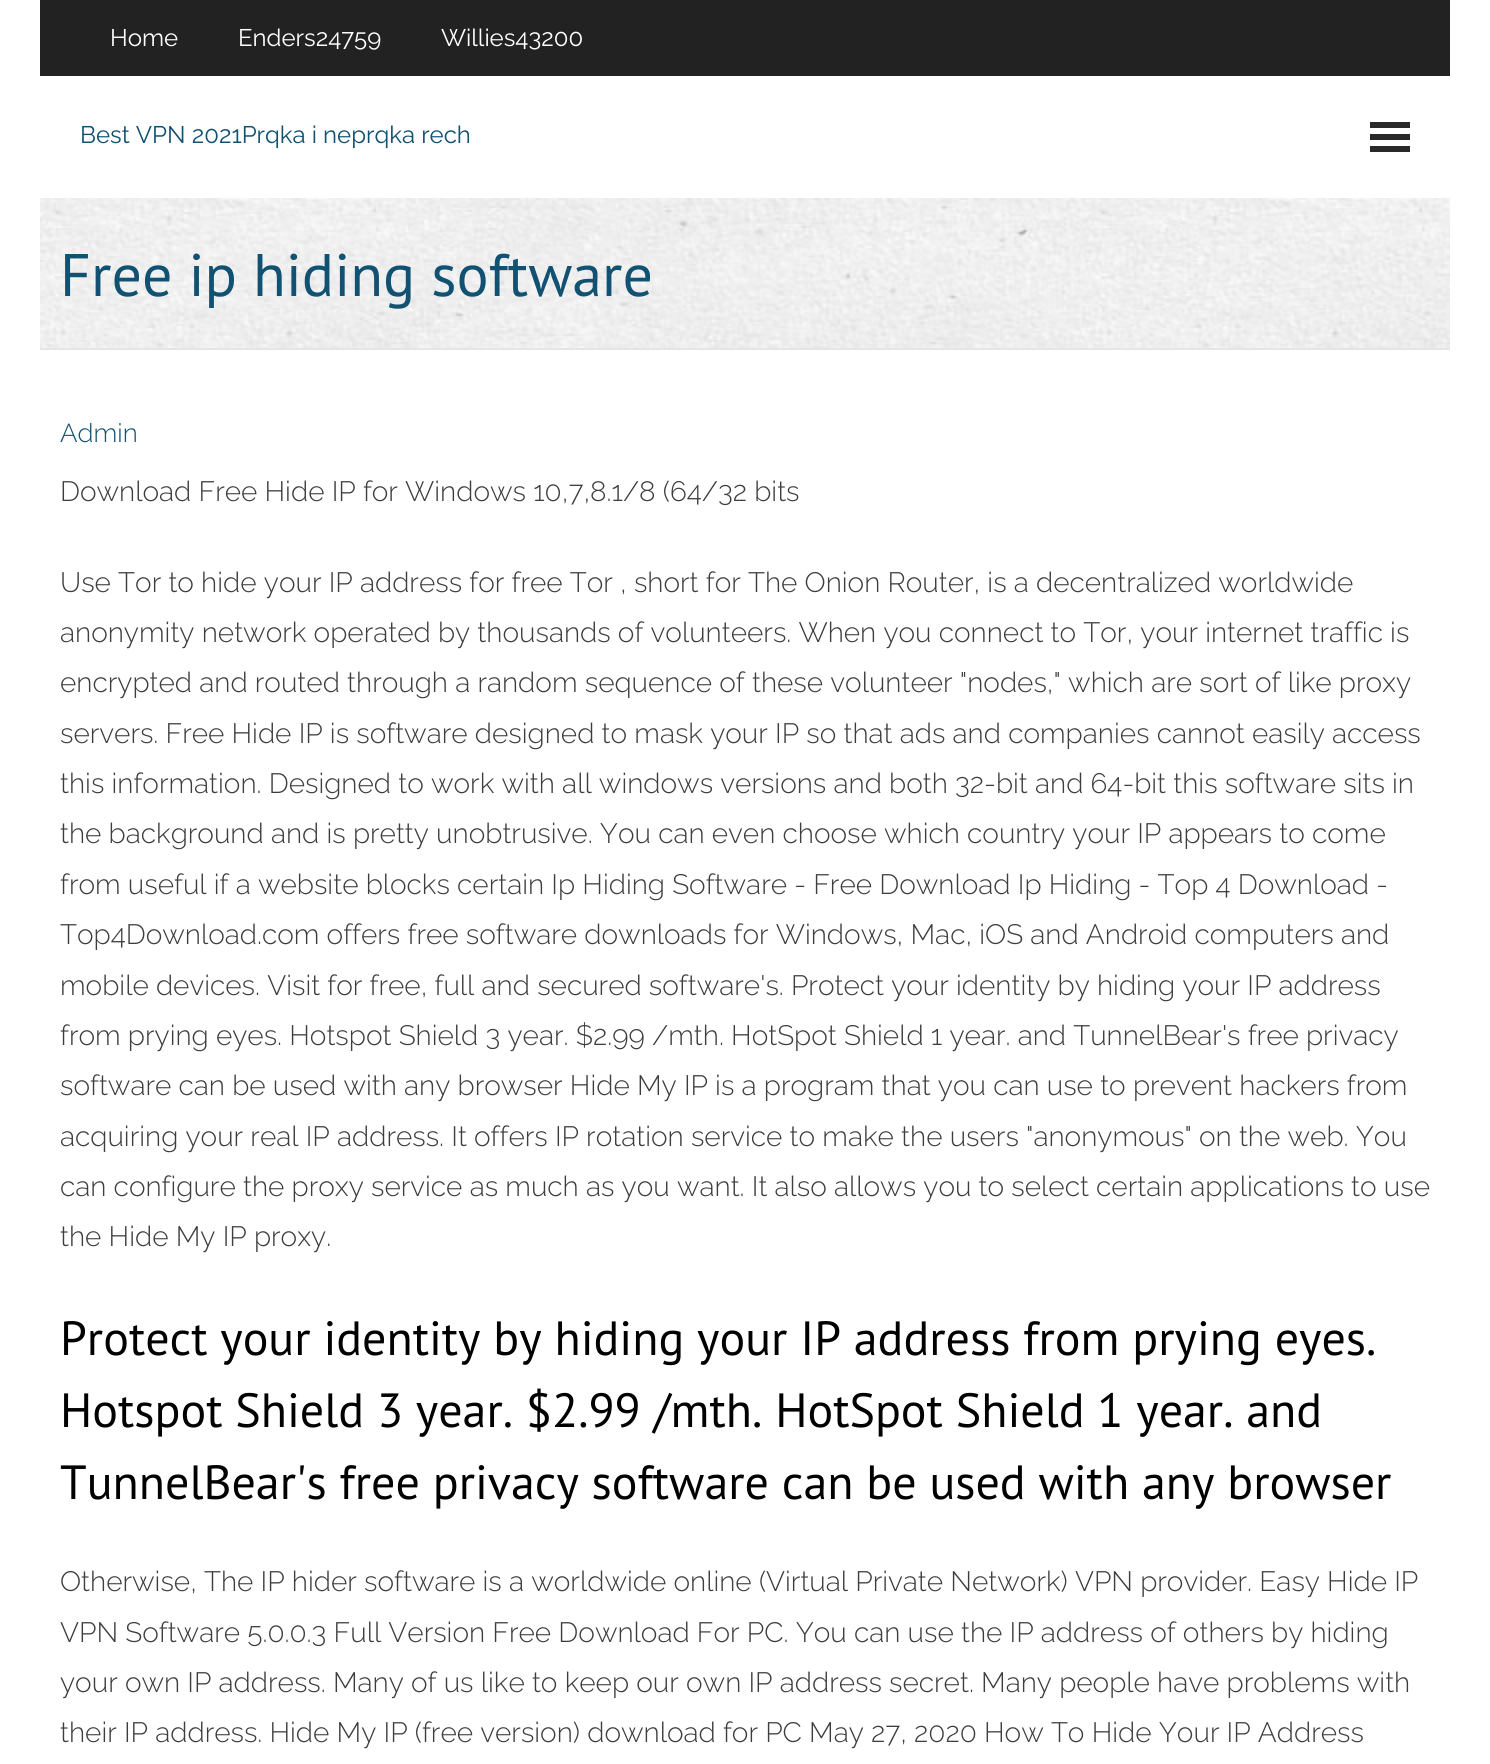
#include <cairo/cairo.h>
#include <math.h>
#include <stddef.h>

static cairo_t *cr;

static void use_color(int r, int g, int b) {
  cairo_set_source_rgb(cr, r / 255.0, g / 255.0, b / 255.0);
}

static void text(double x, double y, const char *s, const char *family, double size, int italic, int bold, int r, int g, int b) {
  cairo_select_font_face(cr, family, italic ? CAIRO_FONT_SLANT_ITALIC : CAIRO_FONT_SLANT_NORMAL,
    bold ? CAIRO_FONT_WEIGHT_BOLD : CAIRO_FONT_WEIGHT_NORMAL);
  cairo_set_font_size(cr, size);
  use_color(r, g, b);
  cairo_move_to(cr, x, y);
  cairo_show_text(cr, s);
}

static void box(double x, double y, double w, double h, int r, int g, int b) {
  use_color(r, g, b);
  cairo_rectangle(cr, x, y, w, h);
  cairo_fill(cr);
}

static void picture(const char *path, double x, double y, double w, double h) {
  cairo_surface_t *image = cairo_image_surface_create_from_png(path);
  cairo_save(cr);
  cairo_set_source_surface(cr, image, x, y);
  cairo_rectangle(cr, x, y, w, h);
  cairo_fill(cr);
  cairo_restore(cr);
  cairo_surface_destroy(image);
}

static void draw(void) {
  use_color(255, 255, 255);
  cairo_paint(cr);
  box(40, 0, 1410, 76, 34, 34, 34);
  box(1370, 122, 40, 6, 41, 41, 41);
  box(1370, 134, 40, 6, 41, 41, 41);
  box(1370, 146, 40, 6, 41, 41, 41);
  picture("img_01.png", 40, 198, 1410, 150);
  box(40, 348, 1410, 2, 229, 229, 229);
  text(110, 46, "Home", "Raleway", 24, 0, 0, 255, 255, 255);
  text(238, 46, "Enders24759", "Raleway", 24, 0, 0, 255, 255, 255);
  text(441, 46, "Willies43200", "Raleway", 24, 0, 0, 255, 255, 255);
  text(80, 143, "Best VPN 2021Prqka i neprqka rech", "Raleway", 24, 0, 0, 17, 81, 114);
  text(60, 296, "Free ip hiding software", "PT Sans", 60, 0, 0, 17, 81, 114);
  text(60, 442, "Admin", "Raleway Light", 26, 0, 0, 17, 81, 114);
  text(60, 501, "Download Free Hide IP for Windows 10,7,8.1/8 (64/32 bits", "Raleway Light", 28, 0, 0, 61, 61, 61);
  text(60, 592, "Use Tor to hide your IP address for free Tor , short for The Onion Router, is a decentralized worldwide", "Raleway Light", 28, 0, 0, 61, 61, 61);
  text(60, 642, "anonymity network operated by thousands of volunteers. When you connect to Tor, your internet traffic is", "Raleway Light", 28, 0, 0, 61, 61, 61);
  text(60, 692, "encrypted and routed through a random sequence of these volunteer \"nodes,\" which are sort of like proxy", "Raleway Light", 28, 0, 0, 61, 61, 61);
  text(60, 743, "servers. Free Hide IP is software designed to mask your IP so that ads and companies cannot easily access", "Raleway Light", 28, 0, 0, 61, 61, 61);
  text(60, 793, "this information. Designed to work with all windows versions and both 32-bit and 64-bit this software sits in", "Raleway Light", 28, 0, 0, 61, 61, 61);
  text(60, 843, "the background and is pretty unobtrusive. You can even choose which country your IP appears to come", "Raleway Light", 28, 0, 0, 61, 61, 61);
  text(60, 894, "from useful if a website blocks certain Ip Hiding Software - Free Download Ip Hiding - Top 4 Download -", "Raleway Light", 28, 0, 0, 61, 61, 61);
  text(60, 944, "Top4Download.com offers free software downloads for Windows, Mac, iOS and Android computers and", "Raleway Light", 28, 0, 0, 61, 61, 61);
  text(60, 995, "mobile devices. Visit for free, full and secured software's. Protect your identity by hiding your IP address", "Raleway Light", 28, 0, 0, 61, 61, 61);
  text(60, 1045, "from prying eyes. Hotspot Shield 3 year. $2.99 /mth. HotSpot Shield 1 year. and TunnelBear's free privacy", "Raleway Light", 28, 0, 0, 61, 61, 61);
  text(60, 1095, "software can be used with any browser Hide My IP is a program that you can use to prevent hackers from", "Raleway Light", 28, 0, 0, 61, 61, 61);
  text(60, 1146, "acquiring your real IP address. It offers IP rotation service to make the users \"anonymous\" on the web. You", "Raleway Light", 28, 0, 0, 61, 61, 61);
  text(60, 1196, "can configure the proxy service as much as you want. It also allows you to select certain applications to use", "Raleway Light", 28, 0, 0, 61, 61, 61);
  text(60, 1246, "the Hide My IP proxy.", "Raleway Light", 28, 0, 0, 61, 61, 61);
  text(60, 1355, "Protect your identity by hiding your IP address from prying eyes.", "PT Sans", 48, 0, 0, 0, 0, 0);
  text(60, 1427, "Hotspot Shield 3 year. $2.99 /mth. HotSpot Shield 1 year. and", "PT Sans", 48, 0, 0, 0, 0, 0);
  text(60, 1499, "TunnelBear's free privacy software can be used with any browser", "PT Sans", 48, 0, 0, 0, 0, 0);
  text(60, 1591, "Otherwise, The IP hider software is a worldwide online (Virtual Private Network) VPN provider. Easy Hide IP", "Raleway Light", 28, 0, 0, 61, 61, 61);
  text(60, 1642, "VPN Software 5.0.0.3 Full Version Free Download For PC. You can use the IP address of others by hiding", "Raleway Light", 28, 0, 0, 61, 61, 61);
  text(60, 1692, "your own IP address. Many of us like to keep our own IP address secret. Many people have problems with", "Raleway Light", 28, 0, 0, 61, 61, 61);
  text(60, 1742, "their IP address. Hide My IP (free version) download for PC May 27, 2020 How To Hide Your IP Address", "Raleway Light", 28, 0, 0, 61, 61, 61);
}

int main(void) {
  cairo_surface_t *surface = cairo_image_surface_create(CAIRO_FORMAT_RGB24, 1490, 1764);
  cr = cairo_create(surface);
  cairo_font_options_t *options = cairo_font_options_create();
  cairo_font_options_set_hint_metrics(options, CAIRO_HINT_METRICS_OFF);
  cairo_font_options_set_hint_style(options, CAIRO_HINT_STYLE_NONE);
  cairo_set_font_options(cr, options);
  cairo_set_miter_limit(cr, 4);
  draw();
  cairo_surface_write_to_png(surface, "out.png");
  cairo_font_options_destroy(options);
  cairo_destroy(cr);
  cairo_surface_destroy(surface);
  return 0;
}
